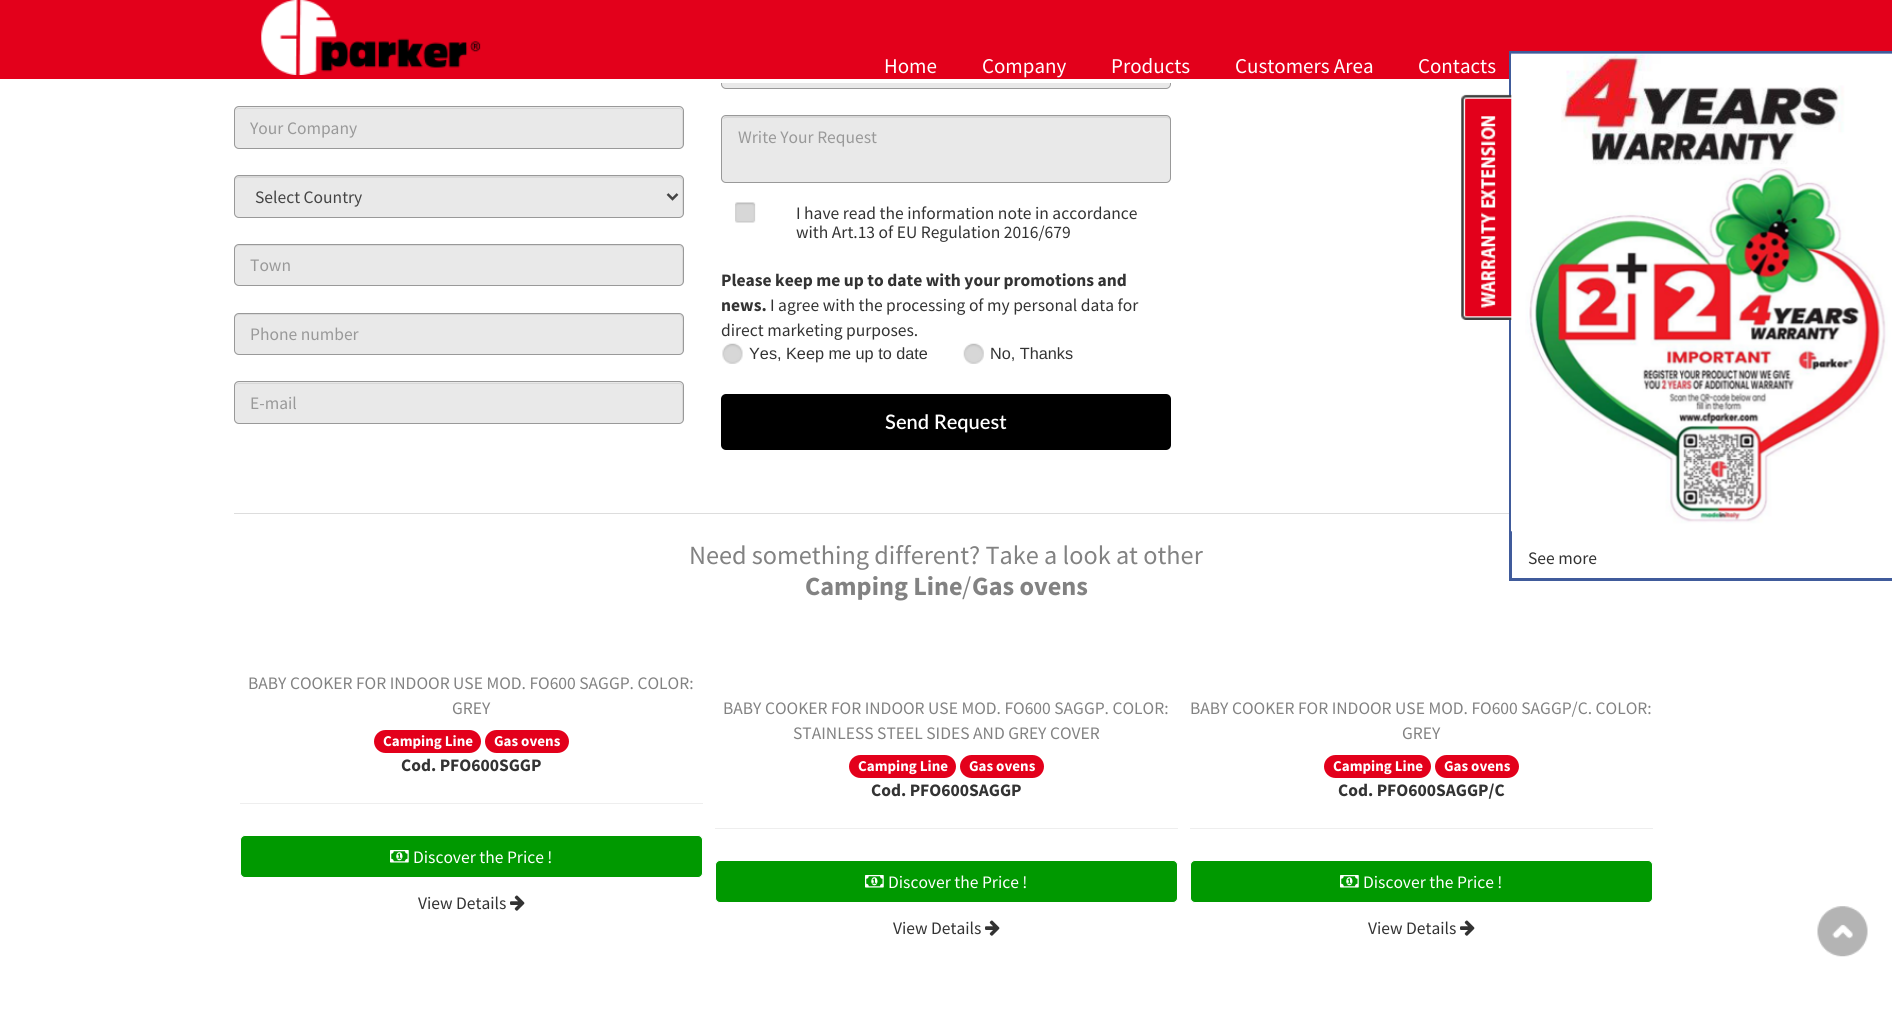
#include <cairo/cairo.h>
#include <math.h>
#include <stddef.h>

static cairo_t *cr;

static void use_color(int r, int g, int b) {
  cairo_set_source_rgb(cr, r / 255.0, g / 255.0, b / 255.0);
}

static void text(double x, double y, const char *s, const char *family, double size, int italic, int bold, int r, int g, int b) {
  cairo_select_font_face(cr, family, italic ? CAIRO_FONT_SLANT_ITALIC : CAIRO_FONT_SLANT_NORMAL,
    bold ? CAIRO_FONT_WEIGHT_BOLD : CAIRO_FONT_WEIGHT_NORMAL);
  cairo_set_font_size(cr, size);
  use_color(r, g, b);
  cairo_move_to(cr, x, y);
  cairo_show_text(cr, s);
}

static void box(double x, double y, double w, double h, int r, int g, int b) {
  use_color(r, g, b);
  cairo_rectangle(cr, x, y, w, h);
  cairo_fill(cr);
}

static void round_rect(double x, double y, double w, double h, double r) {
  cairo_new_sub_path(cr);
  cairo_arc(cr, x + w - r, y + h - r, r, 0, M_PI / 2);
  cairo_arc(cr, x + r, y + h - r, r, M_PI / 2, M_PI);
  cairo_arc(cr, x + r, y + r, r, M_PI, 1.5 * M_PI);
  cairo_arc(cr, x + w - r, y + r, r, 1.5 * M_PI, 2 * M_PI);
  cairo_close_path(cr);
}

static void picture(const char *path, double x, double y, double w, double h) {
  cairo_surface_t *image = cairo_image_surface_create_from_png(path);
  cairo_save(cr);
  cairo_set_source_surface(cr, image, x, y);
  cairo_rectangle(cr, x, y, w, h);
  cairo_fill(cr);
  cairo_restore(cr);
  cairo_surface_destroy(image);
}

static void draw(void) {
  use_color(255, 255, 255);
  cairo_paint(cr);
  use_color(233, 233, 233);
  round_rect(721.5, 0.5, 449, 88, 4.5);
  cairo_fill_preserve(cr);
  use_color(153, 153, 153);
  cairo_set_line_width(cr, 1);
  cairo_stroke(cr);
  box(0, 0, 1892, 79, 227, 0, 27);
  box(721, 79, 450, 4, 255, 255, 255);
  picture("img_01.png", 261, 0, 220, 75);
  use_color(233, 233, 233);
  round_rect(234, 106, 450, 43, 5);
  cairo_fill(cr);
  use_color(216, 216, 216);
  cairo_new_path(cr);
  cairo_move_to(cr, 239, 109);
  cairo_line_to(cr, 679, 109);
  cairo_curve_to(cr, 681, 109, 682, 110, 682, 112);
  cairo_line_to(cr, 682, 147);
  cairo_curve_to(cr, 682, 146, 683, 145, 683, 144);
  cairo_line_to(cr, 683, 112);
  cairo_curve_to(cr, 683, 110, 681, 108, 679, 108);
  cairo_line_to(cr, 239, 108);
  cairo_curve_to(cr, 237, 108, 235, 110, 235, 112);
  cairo_curve_to(cr, 235, 110, 237, 109, 239, 109);
  cairo_close_path(cr);
  cairo_fill(cr);
  round_rect(234.5, 106.5, 449, 42, 4.5);
  use_color(153, 153, 153);
  cairo_stroke(cr);
  use_color(233, 233, 233);
  round_rect(234, 175, 450, 43, 5);
  cairo_fill(cr);
  use_color(216, 216, 216);
  cairo_new_path(cr);
  cairo_move_to(cr, 239, 178);
  cairo_line_to(cr, 679, 178);
  cairo_curve_to(cr, 681, 178, 682, 179, 682, 181);
  cairo_line_to(cr, 682, 215);
  cairo_curve_to(cr, 683, 214, 683, 213, 683, 212);
  cairo_line_to(cr, 683, 180);
  cairo_curve_to(cr, 683, 178, 681, 176, 679, 176);
  cairo_line_to(cr, 239, 176);
  cairo_curve_to(cr, 237, 176, 235, 178, 235, 180);
  cairo_line_to(cr, 235, 181);
  cairo_curve_to(cr, 235, 179, 237, 178, 239, 178);
  cairo_close_path(cr);
  cairo_fill(cr);
  round_rect(234.5, 175.5, 449, 42, 4.5);
  use_color(153, 153, 153);
  cairo_stroke(cr);
  cairo_new_path(cr);
  cairo_move_to(cr, 667.5, 194);
  cairo_line_to(cr, 672.5, 199);
  cairo_line_to(cr, 677.5, 194);
  use_color(68, 68, 68);
  cairo_set_line_width(cr, 2.5);
  cairo_stroke(cr);
  use_color(233, 233, 233);
  round_rect(234, 244, 450, 42, 5);
  cairo_fill(cr);
  use_color(216, 216, 216);
  cairo_new_path(cr);
  cairo_move_to(cr, 239, 246);
  cairo_line_to(cr, 679, 246);
  cairo_curve_to(cr, 684, 246, 682, 259, 682, 261);
  cairo_line_to(cr, 682, 284);
  cairo_curve_to(cr, 683, 283, 683, 282, 683, 281);
  cairo_line_to(cr, 683, 249);
  cairo_curve_to(cr, 683, 247, 681, 245, 679, 245);
  cairo_line_to(cr, 239, 245);
  cairo_curve_to(cr, 237, 245, 235, 247, 235, 249);
  cairo_line_to(cr, 235, 250);
  cairo_curve_to(cr, 235, 248, 237, 246, 239, 246);
  cairo_close_path(cr);
  cairo_fill(cr);
  round_rect(234.5, 244.5, 449, 41, 4.5);
  use_color(153, 153, 153);
  cairo_set_line_width(cr, 1);
  cairo_stroke(cr);
  use_color(233, 233, 233);
  round_rect(234, 313, 450, 42, 5);
  cairo_fill(cr);
  use_color(216, 216, 216);
  cairo_new_path(cr);
  cairo_move_to(cr, 239, 315);
  cairo_line_to(cr, 679, 315);
  cairo_curve_to(cr, 684, 315, 682, 328, 682, 330);
  cairo_line_to(cr, 682, 353);
  cairo_curve_to(cr, 682, 352, 683, 351, 683, 350);
  cairo_line_to(cr, 683, 318);
  cairo_curve_to(cr, 683, 316, 681, 314, 679, 314);
  cairo_line_to(cr, 239, 314);
  cairo_curve_to(cr, 237, 314, 235, 316, 235, 318);
  cairo_line_to(cr, 235, 319);
  cairo_curve_to(cr, 235, 317, 237, 315, 239, 315);
  cairo_close_path(cr);
  cairo_fill(cr);
  round_rect(234.5, 313.5, 449, 41, 4.5);
  use_color(153, 153, 153);
  cairo_stroke(cr);
  use_color(233, 233, 233);
  round_rect(234, 381, 450, 43, 5);
  cairo_fill(cr);
  use_color(216, 216, 216);
  cairo_new_path(cr);
  cairo_move_to(cr, 239, 384);
  cairo_line_to(cr, 679, 384);
  cairo_curve_to(cr, 681, 384, 682, 385, 682, 388);
  cairo_line_to(cr, 682, 422);
  cairo_curve_to(cr, 682, 421, 683, 420, 683, 419);
  cairo_line_to(cr, 683, 387);
  cairo_curve_to(cr, 683, 385, 681, 383, 679, 383);
  cairo_line_to(cr, 239, 383);
  cairo_curve_to(cr, 237, 383, 235, 385, 235, 387);
  cairo_line_to(cr, 235, 388);
  cairo_curve_to(cr, 235, 385, 237, 384, 239, 384);
  cairo_close_path(cr);
  cairo_fill(cr);
  round_rect(234.5, 381.5, 449, 42, 4.5);
  use_color(153, 153, 153);
  cairo_stroke(cr);
  use_color(233, 233, 233);
  round_rect(721, 115, 450, 68, 5);
  cairo_fill(cr);
  use_color(216, 216, 216);
  cairo_new_path(cr);
  cairo_move_to(cr, 726, 118);
  cairo_line_to(cr, 1166, 118);
  cairo_curve_to(cr, 1168, 118, 1170, 119, 1170, 121);
  cairo_line_to(cr, 1170, 120);
  cairo_curve_to(cr, 1170, 118, 1168, 116, 1166, 116);
  cairo_line_to(cr, 727, 116);
  cairo_curve_to(cr, 725, 116, 724, 117, 723, 119);
  cairo_close_path(cr);
  cairo_fill(cr);
  round_rect(721.5, 115.5, 449, 67, 4.5);
  use_color(153, 153, 153);
  cairo_stroke(cr);
  picture("img_02.png", 735, 202, 21, 21);
  picture("img_03.png", 722, 343, 21, 21);
  picture("img_04.png", 963, 343, 21, 21);
  use_color(0, 0, 0);
  round_rect(721, 394, 450, 56, 5);
  cairo_fill(cr);
  box(234, 513, 1275, 1, 221, 221, 221);
  use_color(227, 0, 27);
  round_rect(374, 730, 107, 23, 11.5);
  cairo_fill(cr);
  round_rect(485, 730, 84, 23, 11.5);
  cairo_fill(cr);
  box(240, 803, 463, 1, 238, 238, 238);
  use_color(0, 153, 0);
  round_rect(240.5, 835.5, 462, 42, 4.5);
  cairo_fill_preserve(cr);
  use_color(255, 255, 255);
  cairo_stroke(cr);
  picture("img_05.png", 390, 850, 19, 13);
  picture("img_06.png", 510, 895, 15, 16);
  use_color(227, 0, 27);
  round_rect(849, 755, 107, 23, 11.5);
  cairo_fill(cr);
  round_rect(960, 755, 84, 23, 11.5);
  cairo_fill(cr);
  box(715, 828, 463, 1, 238, 238, 238);
  use_color(0, 153, 0);
  round_rect(715.5, 860.5, 462, 42, 4.5);
  cairo_fill_preserve(cr);
  use_color(255, 255, 255);
  cairo_stroke(cr);
  picture("img_05.png", 865, 875, 19, 13);
  picture("img_06.png", 985, 920, 15, 16);
  use_color(227, 0, 27);
  round_rect(1324, 755, 107, 23, 11.5);
  cairo_fill(cr);
  round_rect(1435, 755, 84, 23, 11.5);
  cairo_fill(cr);
  box(1190, 828, 463, 1, 238, 238, 238);
  use_color(0, 153, 0);
  round_rect(1190.5, 860.5, 462, 42, 4.5);
  cairo_fill_preserve(cr);
  use_color(255, 255, 255);
  cairo_stroke(cr);
  picture("img_05.png", 1340, 875, 19, 13);
  picture("img_06.png", 1460, 920, 15, 16);
  box(1512, 54, 380, 25, 255, 255, 255);
  cairo_rectangle(cr, 1510.5, 52.5, 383, 527);
  use_color(64, 91, 155);
  cairo_set_line_width(cr, 3);
  cairo_stroke(cr);
  picture("img_08.png", 1511, 53, 381, 479);
  picture("img_07.png", 1461, 94, 51, 226);
  picture("img_09.png", 1817, 906, 51, 51);
  text(884, 73, "Home", "Source Sans Pro", 21, 0, 0, 255, 255, 255);
  text(982, 73, "Company", "Source Sans Pro", 21, 0, 0, 255, 255, 255);
  text(1111, 73, "Products", "Source Sans Pro", 21, 0, 0, 255, 255, 255);
  text(1235, 73, "Customers Area", "Source Sans Pro", 21, 0, 0, 255, 255, 255);
  text(1418, 73, "Contacts", "Source Sans Pro", 21, 0, 0, 255, 255, 255);
  text(250, 134, "Your Company", "Source Sans Pro", 17.5, 0, 0, 153, 153, 153);
  text(255, 203, "Select Country", "Source Sans Pro", 17.5, 0, 0, 68, 68, 68);
  text(250, 271, "Town", "Source Sans Pro", 17.5, 0, 0, 153, 153, 153);
  text(250, 340, "Phone number", "Source Sans Pro", 17.5, 0, 0, 153, 153, 153);
  text(250, 409, "E-mail", "Source Sans Pro", 17.5, 0, 0, 153, 153, 153);
  text(738, 143, "Write Your Request", "Source Sans Pro", 17.5, 0, 0, 153, 153, 153);
  text(796, 219, "I have read the information note in accordance", "Source Sans Pro", 17.5, 0, 0, 51, 51, 51);
  text(796, 238, "with Art.13 of EU Regulation 2016/679", "Source Sans Pro", 17.5, 0, 0, 51, 51, 51);
  text(721, 286, "Please keep me up to date with your promotions and", "Source Sans Pro", 17.5, 0, 1, 51, 51, 51);
  text(721, 311, "news.", "Source Sans Pro", 17.5, 0, 1, 51, 51, 51);
  text(770, 311, "I agree with the processing of my personal data for", "Source Sans Pro", 17.5, 0, 0, 51, 51, 51);
  text(721, 336, "direct marketing purposes.", "Source Sans Pro", 17.5, 0, 0, 51, 51, 51);
  text(749, 359, "Yes, Keep me up to date", "Liberation Sans", 16.25, 0, 0, 51, 51, 51);
  text(990, 359, "No, Thanks", "Liberation Sans", 16.25, 0, 0, 51, 51, 51);
  text(885, 429, "Send Request", "Lato SemiBold", 20, 0, 0, 255, 255, 255);
  text(689, 564, "Need something different? Take a look at other", "Source Sans Pro", 26.25, 0, 0, 130, 130, 130);
  text(805, 595, "Camping Line", "Source Sans Pro", 26.25, 0, 1, 130, 130, 130);
  text(962, 595, "/", "Source Sans Pro", 26.25, 0, 0, 130, 130, 130);
  text(972, 595, "Gas ovens", "Source Sans Pro", 26.25, 0, 1, 130, 130, 130);
  text(248, 689, "BABY COOKER FOR INDOOR USE MOD. FO600 SAGGP. COLOR:", "Source Sans Pro", 17.5, 0, 0, 130, 130, 130);
  text(452, 714, "GREY", "Source Sans Pro", 17.5, 0, 0, 130, 130, 130);
  text(383, 746, "Camping Line", "Source Sans Pro", 15, 0, 1, 255, 255, 255);
  text(494, 746, "Gas ovens", "Source Sans Pro", 15, 0, 1, 255, 255, 255);
  text(401, 771, "Cod. PFO600SGGP", "Source Sans Pro", 17.5, 0, 1, 51, 51, 51);
  text(413, 863, "Discover the Price !", "Source Sans Pro", 17.5, 0, 0, 255, 255, 255);
  text(418, 909, "View Details", "Source Sans Pro", 17.5, 0, 0, 51, 51, 51);
  text(723, 714, "BABY COOKER FOR INDOOR USE MOD. FO600 SAGGP. COLOR:", "Source Sans Pro", 17.5, 0, 0, 130, 130, 130);
  text(793, 739, "STAINLESS STEEL SIDES AND GREY COVER", "Source Sans Pro", 17.5, 0, 0, 130, 130, 130);
  text(858, 771, "Camping Line", "Source Sans Pro", 15, 0, 1, 255, 255, 255);
  text(969, 771, "Gas ovens", "Source Sans Pro", 15, 0, 1, 255, 255, 255);
  text(871, 796, "Cod. PFO600SAGGP", "Source Sans Pro", 17.5, 0, 1, 51, 51, 51);
  text(888, 888, "Discover the Price !", "Source Sans Pro", 17.5, 0, 0, 255, 255, 255);
  text(893, 934, "View Details", "Source Sans Pro", 17.5, 0, 0, 51, 51, 51);
  text(1190, 714, "BABY COOKER FOR INDOOR USE MOD. FO600 SAGGP/C. COLOR:", "Source Sans Pro", 17.5, 0, 0, 130, 130, 130);
  text(1402, 739, "GREY", "Source Sans Pro", 17.5, 0, 0, 130, 130, 130);
  text(1333, 771, "Camping Line", "Source Sans Pro", 15, 0, 1, 255, 255, 255);
  text(1444, 771, "Gas ovens", "Source Sans Pro", 15, 0, 1, 255, 255, 255);
  text(1338, 796, "Cod. PFO600SAGGP/C", "Source Sans Pro", 17.5, 0, 1, 51, 51, 51);
  text(1363, 888, "Discover the Price !", "Source Sans Pro", 17.5, 0, 0, 255, 255, 255);
  text(1368, 934, "View Details", "Source Sans Pro", 17.5, 0, 0, 51, 51, 51);
  text(1528, 564, "See more", "Source Sans Pro", 17.5, 0, 0, 51, 51, 51);
}

int main(void) {
  cairo_surface_t *surface = cairo_image_surface_create(CAIRO_FORMAT_RGB24, 1892, 1012);
  cr = cairo_create(surface);
  cairo_font_options_t *options = cairo_font_options_create();
  cairo_font_options_set_hint_metrics(options, CAIRO_HINT_METRICS_OFF);
  cairo_font_options_set_hint_style(options, CAIRO_HINT_STYLE_NONE);
  cairo_set_font_options(cr, options);
  cairo_set_miter_limit(cr, 4);
  draw();
  cairo_surface_write_to_png(surface, "out.png");
  cairo_font_options_destroy(options);
  cairo_destroy(cr);
  cairo_surface_destroy(surface);
  return 0;
}
